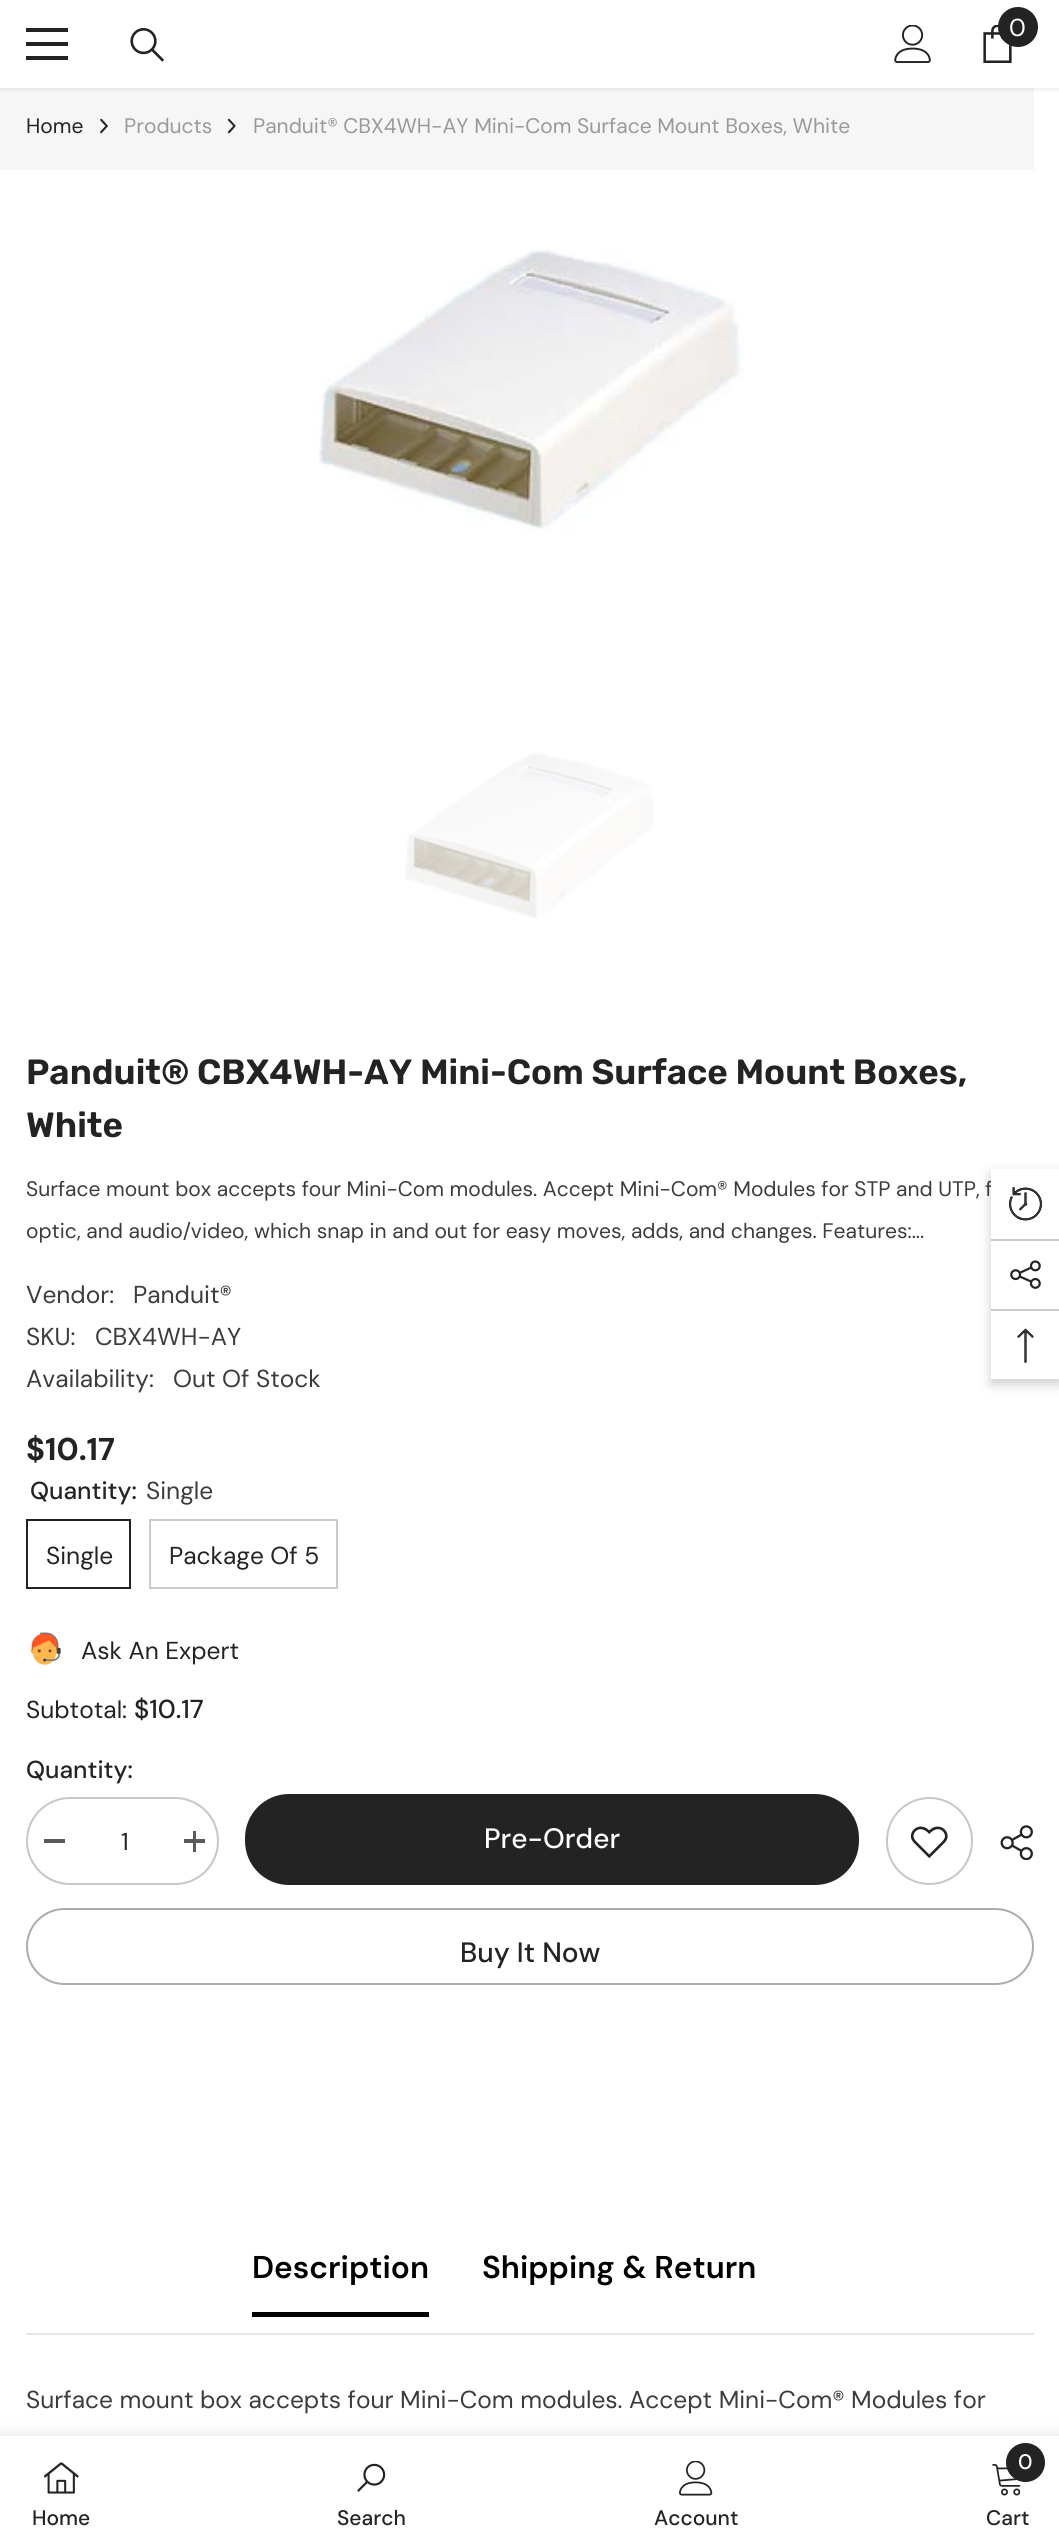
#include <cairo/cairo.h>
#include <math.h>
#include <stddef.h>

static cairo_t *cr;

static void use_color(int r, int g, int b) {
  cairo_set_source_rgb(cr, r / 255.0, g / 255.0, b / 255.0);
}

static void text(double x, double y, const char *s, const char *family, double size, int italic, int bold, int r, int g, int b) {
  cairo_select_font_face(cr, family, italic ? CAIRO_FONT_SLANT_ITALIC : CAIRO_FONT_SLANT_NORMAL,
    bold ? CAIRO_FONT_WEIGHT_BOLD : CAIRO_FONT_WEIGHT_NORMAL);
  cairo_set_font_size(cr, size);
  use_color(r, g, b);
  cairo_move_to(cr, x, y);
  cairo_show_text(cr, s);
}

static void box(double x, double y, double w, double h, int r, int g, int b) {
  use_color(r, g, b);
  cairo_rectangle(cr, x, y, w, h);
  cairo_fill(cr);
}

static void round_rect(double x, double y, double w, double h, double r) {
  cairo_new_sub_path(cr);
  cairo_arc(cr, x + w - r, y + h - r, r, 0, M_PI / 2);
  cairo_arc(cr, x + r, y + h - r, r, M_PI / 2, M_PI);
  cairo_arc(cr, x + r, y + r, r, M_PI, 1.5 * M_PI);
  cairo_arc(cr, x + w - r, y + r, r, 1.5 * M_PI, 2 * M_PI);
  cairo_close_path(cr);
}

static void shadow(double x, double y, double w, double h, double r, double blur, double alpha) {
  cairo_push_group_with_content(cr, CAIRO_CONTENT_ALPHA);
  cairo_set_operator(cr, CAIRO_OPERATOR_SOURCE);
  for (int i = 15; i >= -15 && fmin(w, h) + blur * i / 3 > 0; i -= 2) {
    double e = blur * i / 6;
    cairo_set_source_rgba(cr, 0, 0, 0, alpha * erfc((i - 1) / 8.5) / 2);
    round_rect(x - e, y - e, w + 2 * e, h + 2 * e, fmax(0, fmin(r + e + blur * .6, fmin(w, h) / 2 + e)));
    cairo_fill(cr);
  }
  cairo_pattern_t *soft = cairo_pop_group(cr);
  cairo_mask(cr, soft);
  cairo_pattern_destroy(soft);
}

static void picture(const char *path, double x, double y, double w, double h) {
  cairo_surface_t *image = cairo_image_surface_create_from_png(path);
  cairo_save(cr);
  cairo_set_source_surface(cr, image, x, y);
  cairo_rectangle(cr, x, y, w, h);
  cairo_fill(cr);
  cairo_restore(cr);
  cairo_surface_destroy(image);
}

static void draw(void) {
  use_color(255, 255, 255);
  cairo_paint(cr);
  box(0, 88, 1034, 82, 246, 246, 246);
  use_color(0, 0, 0);
  shadow(0, 2, 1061, 87, 0, 2.5, 0.1);
  box(0, 0, 1059, 88, 255, 255, 255);
  box(26, 42, 42, 4, 35, 35, 35);
  box(26, 28, 42, 4, 35, 35, 35);
  box(26, 56, 42, 4, 35, 35, 35);
  picture("img_01.png", 130, 28, 35, 34);
  picture("img_02.png", 894, 25, 37, 38);
  picture("img_03.png", 983, 25, 29, 38);
  cairo_arc(cr, 1018, 27, 20, 0, 2 * M_PI);
  cairo_fill(cr);
  picture("img_04.png", 100, 118, 8, 16);
  picture("img_05.png", 227, 118, 9, 16);
  picture("img_06.png", 318, 250, 427, 282);
  picture("img_07.png", 405, 753, 249, 166);
  cairo_rectangle(cr, 27, 1520, 103, 68);
  cairo_stroke(cr);
  cairo_rectangle(cr, 150, 1520, 187, 68);
  use_color(203, 203, 203);
  cairo_stroke(cr);
  picture("img_08.png", 30, 1632, 31, 33);
  round_rect(27, 1798, 191, 86, 43);
  use_color(199, 199, 199);
  cairo_stroke(cr);
  box(44, 1839, 21, 4, 90, 90, 90);
  box(184, 1839, 21, 4, 90, 90, 90);
  box(193, 1831, 3, 21, 90, 90, 90);
  use_color(35, 35, 35);
  round_rect(246, 1795, 612, 89, 43);
  cairo_fill_preserve(cr);
  cairo_stroke(cr);
  round_rect(887, 1798, 85, 86, 42.5);
  use_color(199, 199, 199);
  cairo_stroke(cr);
  picture("img_09.png", 910, 1826, 38, 33);
  picture("img_10.png", 1000, 1825, 33, 35);
  round_rect(27, 1909, 1006, 75, 37.5);
  use_color(172, 172, 172);
  cairo_stroke(cr);
  box(26, 2333, 1008, 2, 230, 230, 230);
  box(252, 2312, 177, 5, 0, 0, 0);
  use_color(0, 0, 0);
  shadow(0, 2436, 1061, 112, 0, 8, 0.12);
  box(0, 2436, 1059, 112, 255, 255, 255);
  picture("img_11.png", 44, 2462, 35, 32);
  picture("img_12.png", 357, 2463, 29, 29);
  picture("img_13.png", 679, 2461, 34, 35);
  picture("img_14.png", 992, 2464, 29, 32);
  use_color(35, 35, 35);
  cairo_arc(cr, 1025.5, 2462.5, 19.5, 0, 2 * M_PI);
  cairo_fill(cr);
  use_color(0, 0, 0);
  shadow(991, 1174, 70, 210, 0, 6, 0.2);
  text(1009, 36, "0", "DM Sans", 24.5, 0, 0, 255, 255, 255);
  text(26, 133, "Home", "DM Sans", 21, 0, 0, 35, 35, 35);
  text(124, 133, "Products", "DM Sans", 21, 0, 0, 153, 153, 153);
  text(253, 133, "Panduit® CBX4WH-AY Mini-Com Surface Mount Boxes, White", "DM Sans", 21, 0, 0, 153, 153, 153);
  text(26, 1084, "Panduit® CBX4WH-AY Mini-Com Surface Mount Boxes,", "Rubik SemiBold", 35, 0, 0, 35, 35, 35);
  text(26, 1137, "White", "Rubik SemiBold", 35, 0, 0, 35, 35, 35);
  text(26, 1196, "Surface mount box accepts four Mini-Com modules. Accept Mini-Com® Modules for STP and UTP, f", "DM Sans", 21, 0, 0, 60, 60, 60);
  text(26, 1238, "optic, and audio/video, which snap in and out for easy moves, adds, and changes. Features:...", "DM Sans", 21, 0, 0, 60, 60, 60);
  text(26, 1303, "Vendor:", "DM Sans", 24.5, 0, 0, 60, 60, 60);
  text(133, 1303, "Panduit®", "DM Sans", 24.5, 0, 0, 60, 60, 60);
  text(26, 1345, "SKU:", "DM Sans", 24.5, 0, 0, 60, 60, 60);
  text(95, 1345, "CBX4WH-AY", "DM Sans", 24.5, 0, 0, 60, 60, 60);
  text(26, 1387, "Availability:", "DM Sans", 24.5, 0, 0, 60, 60, 60);
  text(173, 1387, "Out Of Stock", "DM Sans", 24.5, 0, 0, 60, 60, 60);
  text(26, 1460, "$10.17", "DM Sans", 31.5, 0, 1, 35, 35, 35);
  text(30, 1499, "Quantity:", "DM Sans Medium", 24.5, 0, 0, 35, 35, 35);
  text(146, 1499, "Single", "DM Sans", 24.5, 0, 0, 60, 60, 60);
  text(46, 1564, "Single", "DM Sans", 24.5, 0, 0, 35, 35, 35);
  text(169, 1564, "Package Of 5", "DM Sans", 24.5, 0, 0, 35, 35, 35);
  text(81, 1659, "Ask An Expert", "DM Sans", 24.5, 0, 0, 35, 35, 35);
  text(26, 1718, "Subtotal:", "DM Sans", 24.5, 0, 0, 35, 35, 35);
  text(134, 1718, "$10.17", "DM Sans Medium", 26, 0, 0, 35, 35, 35);
  text(26, 1778, "Quantity:", "DM Sans Medium", 24.5, 0, 0, 35, 35, 35);
  text(121, 1850, "1", "DM Sans", 24.5, 0, 0, 35, 35, 35);
  text(484, 1848, "Pre-Order", "DM Sans Medium", 28, 0, 0, 255, 255, 255);
  text(460, 1962, "Buy It Now", "DM Sans Medium", 28, 0, 0, 35, 35, 35);
  text(252, 2278, "Description", "DM Sans SemiBold", 31.5, 0, 0, 0, 0, 0);
  text(482, 2278, "Shipping & Return", "DM Sans SemiBold", 31.5, 0, 0, 0, 0, 0);
  text(26, 2408, "Surface mount box accepts four Mini-Com modules. Accept Mini-Com® Modules for", "DM Sans", 24.5, 0, 0, 60, 60, 60);
  text(32, 2525, "Home", "DM Sans Medium", 21, 0, 0, 35, 35, 35);
  text(337, 2525, "Search", "DM Sans Medium", 21, 0, 0, 35, 35, 35);
  text(654, 2525, "Account", "DM Sans Medium", 21, 0, 0, 35, 35, 35);
  text(1018, 2469, "0", "DM Sans Medium", 21, 0, 0, 255, 255, 255);
  text(986, 2525, "Cart", "DM Sans Medium", 21, 0, 0, 35, 35, 35);
  box(991, 1169, 68, 210, 255, 255, 255);
  picture("img_15.png", 1009, 1187, 33, 34);
  box(991, 1239, 68, 2, 204, 204, 204);
  picture("img_16.png", 1010, 1260, 31, 29);
  box(991, 1309, 68, 2, 204, 204, 204);
  picture("img_17.png", 1017, 1328, 17, 35);
}

int main(void) {
  cairo_surface_t *surface = cairo_image_surface_create(CAIRO_FORMAT_RGB24, 1059, 2548);
  cr = cairo_create(surface);
  cairo_font_options_t *options = cairo_font_options_create();
  cairo_font_options_set_hint_metrics(options, CAIRO_HINT_METRICS_OFF);
  cairo_font_options_set_hint_style(options, CAIRO_HINT_STYLE_NONE);
  cairo_set_font_options(cr, options);
  cairo_set_miter_limit(cr, 4);
  draw();
  cairo_surface_write_to_png(surface, "out.png");
  cairo_font_options_destroy(options);
  cairo_destroy(cr);
  cairo_surface_destroy(surface);
  return 0;
}
